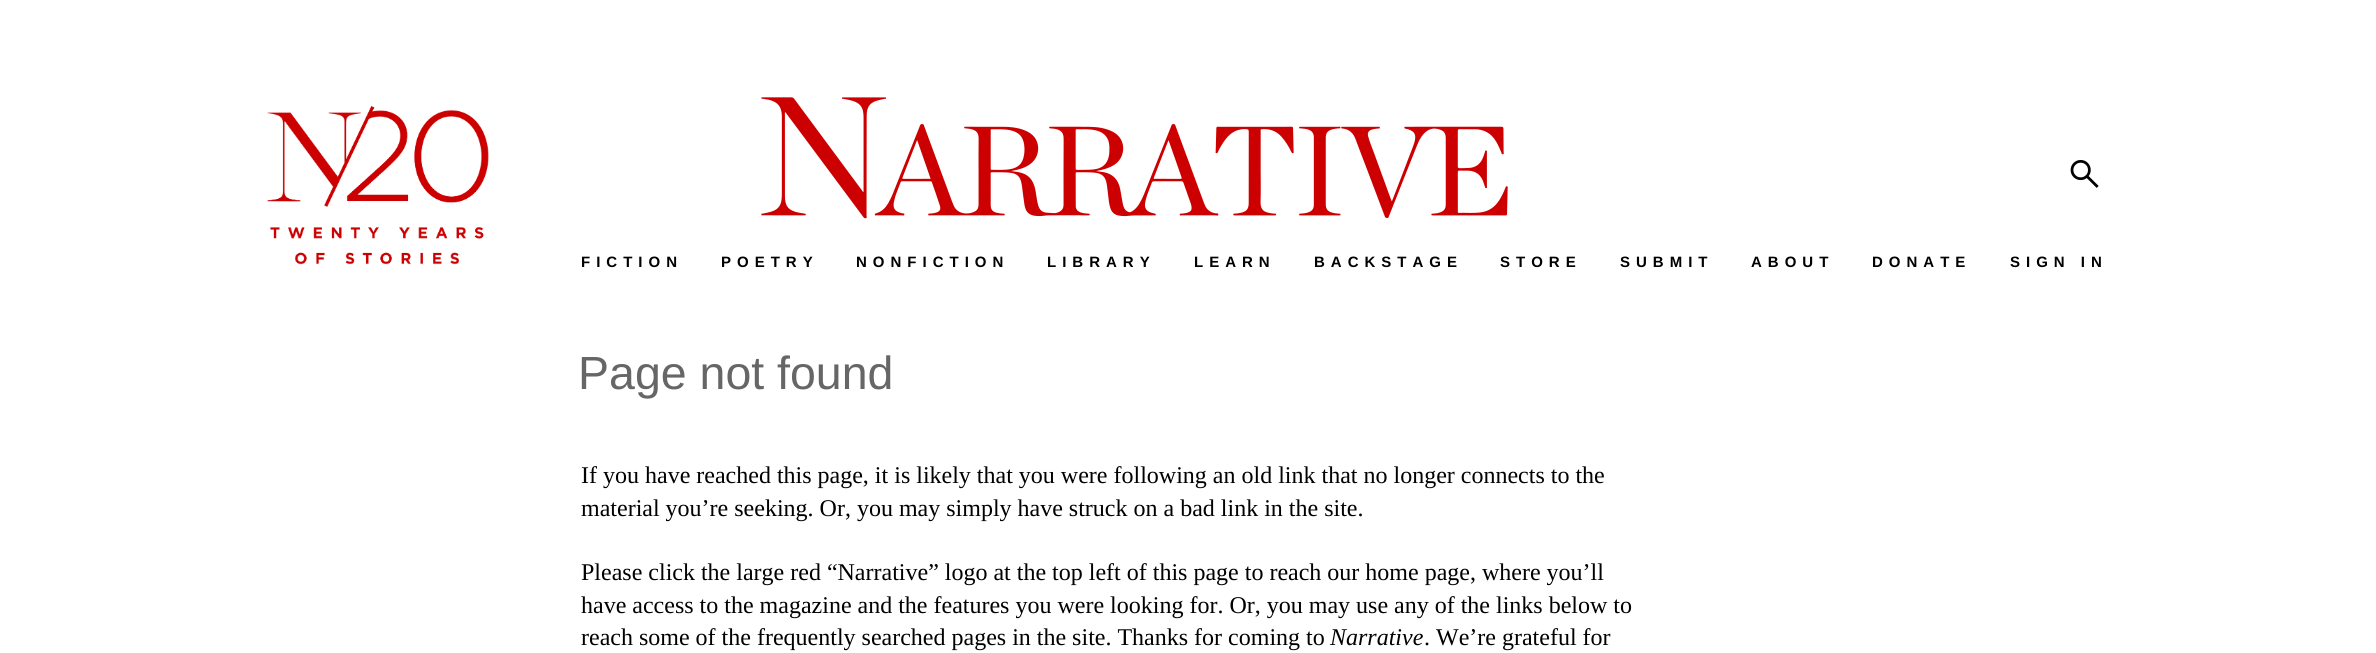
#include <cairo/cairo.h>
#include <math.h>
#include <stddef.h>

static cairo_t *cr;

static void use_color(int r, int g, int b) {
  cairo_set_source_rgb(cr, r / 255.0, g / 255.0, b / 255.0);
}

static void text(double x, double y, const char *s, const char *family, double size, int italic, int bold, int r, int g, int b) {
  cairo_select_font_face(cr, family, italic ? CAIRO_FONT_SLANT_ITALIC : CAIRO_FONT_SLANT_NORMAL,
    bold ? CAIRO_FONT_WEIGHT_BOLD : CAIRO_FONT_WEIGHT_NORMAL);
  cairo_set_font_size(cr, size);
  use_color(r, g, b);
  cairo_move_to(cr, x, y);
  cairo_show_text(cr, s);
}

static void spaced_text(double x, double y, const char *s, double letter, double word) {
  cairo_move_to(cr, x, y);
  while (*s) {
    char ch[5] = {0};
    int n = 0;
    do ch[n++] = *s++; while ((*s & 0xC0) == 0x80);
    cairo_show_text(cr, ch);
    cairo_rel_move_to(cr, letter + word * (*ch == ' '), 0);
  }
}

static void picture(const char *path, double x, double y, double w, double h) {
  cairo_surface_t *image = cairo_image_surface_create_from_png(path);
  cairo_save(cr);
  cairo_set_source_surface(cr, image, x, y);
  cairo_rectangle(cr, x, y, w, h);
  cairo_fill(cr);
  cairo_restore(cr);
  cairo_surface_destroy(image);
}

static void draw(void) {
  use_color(255, 255, 255);
  cairo_paint(cr);
  picture("img_01.png", 267, 105, 222, 160);
  picture("img_02.png", 761, 97, 747, 122);
  picture("img_03.png", 2070, 160, 29, 28);
  cairo_select_font_face(cr, "Liberation Sans", CAIRO_FONT_SLANT_NORMAL, CAIRO_FONT_WEIGHT_BOLD);
  cairo_set_font_size(cr, 15);
  use_color(0, 0, 0);
  spaced_text(581, 267, "FICTION", 6, 0);
  spaced_text(721, 267, "POETRY", 6, 0);
  spaced_text(856, 267, "NONFICTION", 6, 0);
  spaced_text(1047, 267, "LIBRARY", 6, 0);
  spaced_text(1194, 267, "LEARN", 6, 0);
  spaced_text(1314, 267, "BACKSTAGE", 6, 0);
  spaced_text(1500, 267, "STORE", 6, 0);
  spaced_text(1620, 267, "SUBMIT", 6, 0);
  spaced_text(1751, 267, "ABOUT", 6, 0);
  spaced_text(1872, 267, "DONATE", 6, 0);
  spaced_text(2010, 267, "SIGN IN", 6, 0);
  text(578, 389, "Page not found", "Liberation Sans", 46.5, 0, 0, 102, 102, 102);
  text(581, 483, "If you have reached this page, it is likely that you were following an old link that no longer connects to the", "Liberation Serif", 24, 0, 0, 0, 0, 0);
  text(581, 516, "material you’re seeking. Or, you may simply have struck on a bad link in the site.", "Liberation Serif", 24, 0, 0, 0, 0, 0);
  text(581, 580, "Please click the large red “Narrative” logo at the top left of this page to reach our home page, where you’ll", "Liberation Serif", 24, 0, 0, 0, 0, 0);
  text(581, 613, "have access to the magazine and the features you were looking for. Or, you may use any of the links below to", "Liberation Serif", 24, 0, 0, 0, 0, 0);
  text(581, 645, "reach some of the frequently searched pages in the site. Thanks for coming to", "Liberation Serif", 24, 0, 0, 0, 0, 0);
  text(1330, 645, "Narrative", "Liberation Serif", 24, 1, 0, 0, 0, 0);
  text(1424, 645, ". We’re grateful for", "Liberation Serif", 24, 0, 0, 0, 0, 0);
}

int main(void) {
  cairo_surface_t *surface = cairo_image_surface_create(CAIRO_FORMAT_RGB24, 2376, 653);
  cr = cairo_create(surface);
  cairo_font_options_t *options = cairo_font_options_create();
  cairo_font_options_set_hint_metrics(options, CAIRO_HINT_METRICS_OFF);
  cairo_font_options_set_hint_style(options, CAIRO_HINT_STYLE_NONE);
  cairo_set_font_options(cr, options);
  cairo_set_miter_limit(cr, 4);
  draw();
  cairo_surface_write_to_png(surface, "out.png");
  cairo_font_options_destroy(options);
  cairo_destroy(cr);
  cairo_surface_destroy(surface);
  return 0;
}
